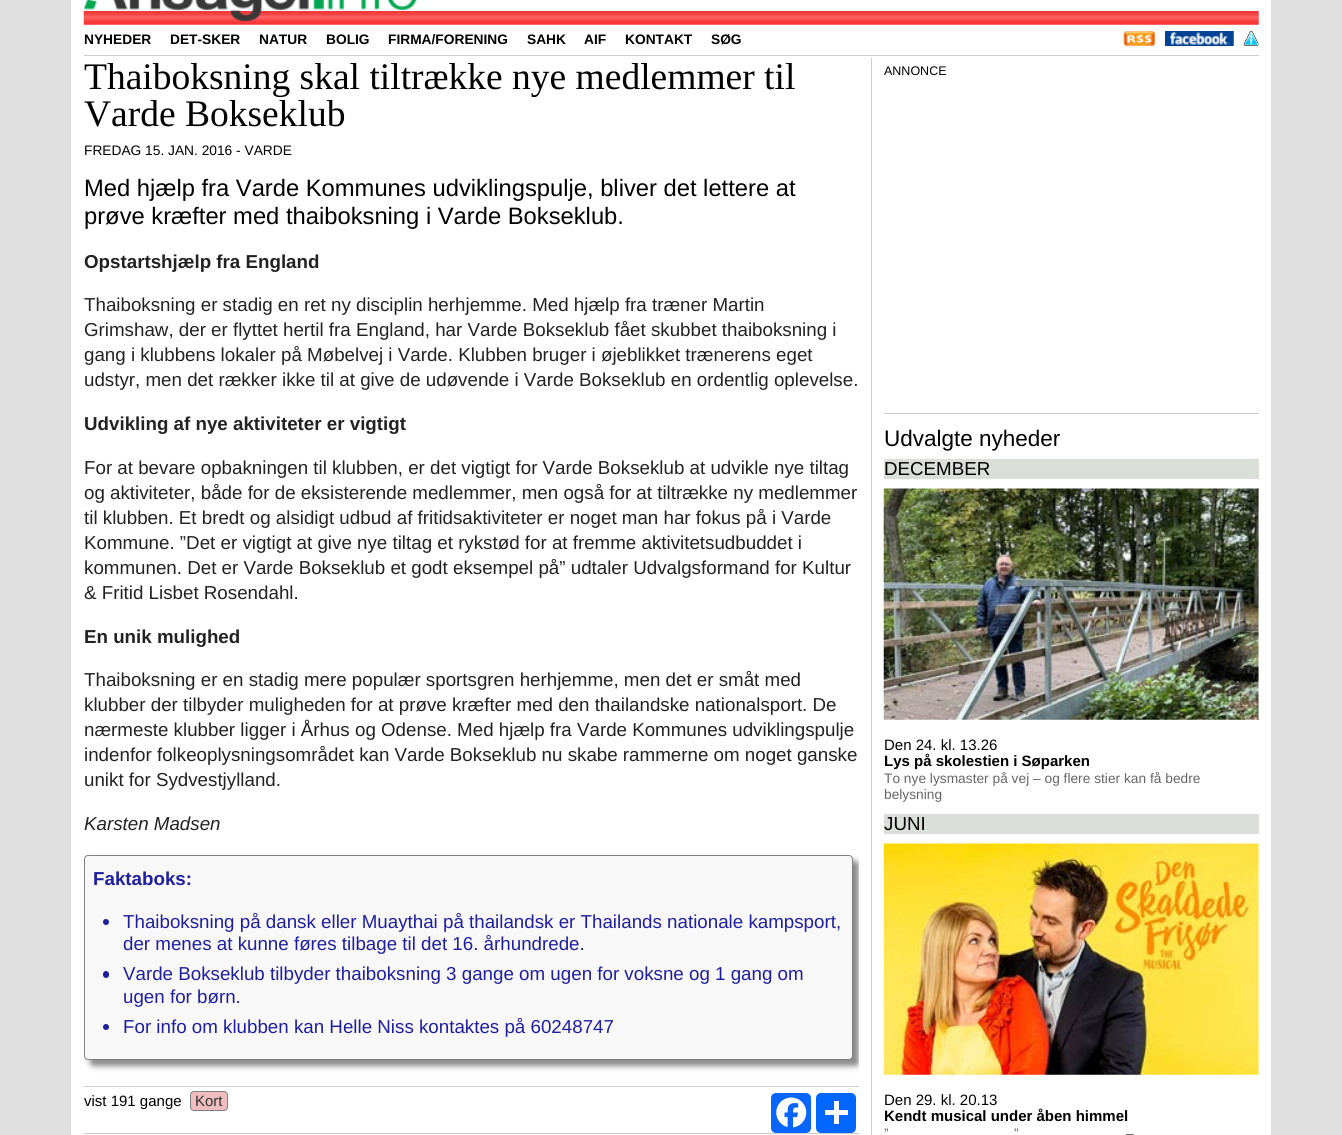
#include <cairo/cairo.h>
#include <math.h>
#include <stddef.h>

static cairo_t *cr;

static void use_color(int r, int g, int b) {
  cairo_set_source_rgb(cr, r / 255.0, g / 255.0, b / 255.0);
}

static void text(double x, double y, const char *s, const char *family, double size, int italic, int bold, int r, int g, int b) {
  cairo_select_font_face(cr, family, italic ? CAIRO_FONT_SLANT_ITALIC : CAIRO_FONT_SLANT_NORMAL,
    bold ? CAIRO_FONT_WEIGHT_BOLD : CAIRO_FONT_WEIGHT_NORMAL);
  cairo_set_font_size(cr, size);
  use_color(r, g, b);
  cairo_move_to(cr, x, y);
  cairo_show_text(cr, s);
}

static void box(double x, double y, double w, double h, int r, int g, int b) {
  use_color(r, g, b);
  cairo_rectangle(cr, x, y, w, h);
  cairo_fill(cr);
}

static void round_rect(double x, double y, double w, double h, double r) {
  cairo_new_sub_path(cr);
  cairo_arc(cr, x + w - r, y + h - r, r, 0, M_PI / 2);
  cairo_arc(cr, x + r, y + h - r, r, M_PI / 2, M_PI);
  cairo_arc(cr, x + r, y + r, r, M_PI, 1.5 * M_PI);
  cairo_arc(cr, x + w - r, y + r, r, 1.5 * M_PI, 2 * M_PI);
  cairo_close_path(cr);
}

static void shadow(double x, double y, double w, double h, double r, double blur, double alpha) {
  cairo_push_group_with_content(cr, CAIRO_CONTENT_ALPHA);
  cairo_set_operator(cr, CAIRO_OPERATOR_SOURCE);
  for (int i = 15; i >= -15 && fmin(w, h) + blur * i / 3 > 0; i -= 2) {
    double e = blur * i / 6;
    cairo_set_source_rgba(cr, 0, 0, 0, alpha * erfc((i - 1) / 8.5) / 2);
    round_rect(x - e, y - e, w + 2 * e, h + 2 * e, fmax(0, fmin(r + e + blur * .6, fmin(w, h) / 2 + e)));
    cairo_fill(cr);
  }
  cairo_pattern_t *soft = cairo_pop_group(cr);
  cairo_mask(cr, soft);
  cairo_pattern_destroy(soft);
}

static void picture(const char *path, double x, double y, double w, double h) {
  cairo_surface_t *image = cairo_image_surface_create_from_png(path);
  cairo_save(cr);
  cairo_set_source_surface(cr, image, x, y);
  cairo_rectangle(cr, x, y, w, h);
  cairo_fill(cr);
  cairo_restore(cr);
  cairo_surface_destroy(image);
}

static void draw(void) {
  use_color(224, 224, 224);
  cairo_paint(cr);
  box(71, 0, 1200, 1135, 255, 255, 255);
  picture("img_01.png", 83, 11, 1176, 14);
  picture("img_02.png", 83, 0, 334, 21);
  picture("img_03.png", 1123, 31, 32, 15);
  picture("img_04.png", 1165, 31, 69, 15);
  picture("img_05.png", 1243, 31, 16, 15);
  box(84, 55, 1175, 1, 204, 204, 204);
  box(871, 58, 1, 1077, 204, 204, 204);
  cairo_save(cr);
  cairo_rectangle(cr, 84, 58, 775, 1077);
  cairo_clip(cr);
  use_color(136, 136, 136);
  shadow(90, 861, 769, 205, 4, 3, 1);
  cairo_restore(cr);
  use_color(248, 248, 248);
  round_rect(84.5, 855.5, 768, 204, 3.5);
  cairo_fill_preserve(cr);
  use_color(128, 128, 128);
  cairo_set_line_width(cr, 1);
  cairo_stroke(cr);
  use_color(31, 31, 158);
  cairo_arc(cr, 106, 922, 3, 0, 2 * M_PI);
  cairo_fill(cr);
  round_rect(103, 971, 6, 7, 3);
  cairo_fill(cr);
  cairo_arc(cr, 106, 1027, 3, 0, 2 * M_PI);
  cairo_fill(cr);
  box(84, 1086, 775, 1, 204, 204, 204);
  use_color(240, 190, 192);
  round_rect(190.5, 1091.5, 37, 19, 3.5);
  cairo_fill_preserve(cr);
  use_color(128, 128, 128);
  cairo_stroke(cr);
  use_color(8, 102, 255);
  round_rect(771, 1093, 40, 40, 5);
  cairo_fill(cr);
  picture("img_06.png", 776, 1097, 31, 31);
  use_color(1, 102, 255);
  round_rect(816, 1093, 40, 40, 5);
  cairo_fill(cr);
  box(834, 1101, 5, 23, 255, 255, 255);
  box(825, 1110, 23, 5, 255, 255, 255);
  box(84, 1133, 775, 1, 204, 204, 204);
  box(884, 413, 375, 1, 204, 204, 204);
  box(884, 459, 375, 20, 219, 223, 217);
  picture("img_07.png", 883, 488, 376, 232);
  box(884, 814, 375, 20, 219, 223, 217);
  picture("img_08.png", 883, 843, 376, 232);
  text(84, 44, "NYHEDER", "Liberation Sans", 13.75, 0, 1, 0, 0, 0);
  text(170, 44, "DET-SKER", "Liberation Sans", 13.75, 0, 1, 0, 0, 0);
  text(259, 44, "NATUR", "Liberation Sans", 13.75, 0, 1, 0, 0, 0);
  text(326, 44, "BOLIG", "Liberation Sans", 13.75, 0, 1, 0, 0, 0);
  text(388, 44, "FIRMA/FORENING", "Liberation Sans", 13.75, 0, 1, 0, 0, 0);
  text(527, 44, "SAHK", "Liberation Sans", 13.75, 0, 1, 0, 0, 0);
  text(584, 44, "AIF", "Liberation Sans", 13.75, 0, 1, 0, 0, 0);
  text(625, 44, "KONTAKT", "Liberation Sans", 13.75, 0, 1, 0, 0, 0);
  text(711, 44, "SØG", "Liberation Sans", 13.75, 0, 1, 0, 0, 0);
  text(84, 89, "Thaiboksning skal tiltrække nye medlemmer til", "Liberation Serif", 37.5, 0, 0, 0, 0, 0);
  text(84, 126, "Varde Bokseklub", "Liberation Serif", 37.5, 0, 0, 0, 0, 0);
  text(84, 155, "FREDAG 15. JAN. 2016 - VARDE", "Liberation Sans", 13.75, 0, 0, 0, 0, 0);
  text(84, 196, "Med hjælp fra Varde Kommunes udviklingspulje, bliver det lettere at", "Liberation Sans", 23.75, 0, 0, 0, 0, 0);
  text(84, 224, "prøve kræfter med thaiboksning i Varde Bokseklub.", "Liberation Sans", 23.75, 0, 0, 0, 0, 0);
  text(84, 268, "Opstartshjælp fra England", "Liberation Sans", 18.75, 0, 1, 34, 34, 34);
  text(84, 311, "Thaiboksning er stadig en ret ny disciplin herhjemme. Med hjælp fra træner Martin", "Liberation Sans", 18.75, 0, 0, 34, 34, 34);
  text(84, 336, "Grimshaw, der er flyttet hertil fra England, har Varde Bokseklub fået skubbet thaiboksning i", "Liberation Sans", 18.75, 0, 0, 34, 34, 34);
  text(84, 361, "gang i klubbens lokaler på Møbelvej i Varde. Klubben bruger i øjeblikket trænerens eget", "Liberation Sans", 18.75, 0, 0, 34, 34, 34);
  text(84, 386, "udstyr, men det rækker ikke til at give de udøvende i Varde Bokseklub en ordentlig oplevelse.", "Liberation Sans", 18.75, 0, 0, 34, 34, 34);
  text(84, 430, "Udvikling af nye aktiviteter er vigtigt", "Liberation Sans", 18.75, 0, 1, 34, 34, 34);
  text(84, 474, "For at bevare opbakningen til klubben, er det vigtigt for Varde Bokseklub at udvikle nye tiltag", "Liberation Sans", 18.75, 0, 0, 34, 34, 34);
  text(84, 499, "og aktiviteter, både for de eksisterende medlemmer, men også for at tiltrække ny medlemmer", "Liberation Sans", 18.75, 0, 0, 34, 34, 34);
  text(84, 524, "til klubben. Et bredt og alsidigt udbud af fritidsaktiviteter er noget man har fokus på i Varde", "Liberation Sans", 18.75, 0, 0, 34, 34, 34);
  text(84, 549, "Kommune. ”Det er vigtigt at give nye tiltag et rykstød for at fremme aktivitetsudbuddet i", "Liberation Sans", 18.75, 0, 0, 34, 34, 34);
  text(84, 574, "kommunen. Det er Varde Bokseklub et godt eksempel på” udtaler Udvalgsformand for Kultur", "Liberation Sans", 18.75, 0, 0, 34, 34, 34);
  text(84, 599, "& Fritid Lisbet Rosendahl.", "Liberation Sans", 18.75, 0, 0, 34, 34, 34);
  text(84, 643, "En unik mulighed", "Liberation Sans", 18.75, 0, 1, 34, 34, 34);
  text(84, 686, "Thaiboksning er en stadig mere populær sportsgren herhjemme, men det er småt med", "Liberation Sans", 18.75, 0, 0, 34, 34, 34);
  text(84, 711, "klubber der tilbyder muligheden for at prøve kræfter med den thailandske nationalsport. De", "Liberation Sans", 18.75, 0, 0, 34, 34, 34);
  text(84, 736, "nærmeste klubber ligger i Århus og Odense. Med hjælp fra Varde Kommunes udviklingspulje", "Liberation Sans", 18.75, 0, 0, 34, 34, 34);
  text(84, 761, "indenfor folkeoplysningsområdet kan Varde Bokseklub nu skabe rammerne om noget ganske", "Liberation Sans", 18.75, 0, 0, 34, 34, 34);
  text(84, 786, "unikt for Sydvestjylland.", "Liberation Sans", 18.75, 0, 0, 34, 34, 34);
  text(84, 830, "Karsten Madsen", "Liberation Sans", 18.75, 1, 0, 34, 34, 34);
  text(93, 885, "Faktaboks:", "Liberation Sans", 18.75, 0, 1, 31, 31, 158);
  text(123, 928, "Thaiboksning på dansk eller Muaythai på thailandsk er Thailands nationale kampsport,", "Liberation Sans", 18.75, 0, 0, 31, 31, 158);
  text(123, 950, "der menes at kunne føres tilbage til det 16. århundrede.", "Liberation Sans", 18.75, 0, 0, 31, 31, 158);
  text(123, 980, "Varde Bokseklub tilbyder thaiboksning 3 gange om ugen for voksne og 1 gang om", "Liberation Sans", 18.75, 0, 0, 31, 31, 158);
  text(123, 1003, "ugen for børn.", "Liberation Sans", 18.75, 0, 0, 31, 31, 158);
  text(123, 1033, "For info om klubben kan Helle Niss kontaktes på 60248747", "Liberation Sans", 18.75, 0, 0, 31, 31, 158);
  text(84, 1106, "vist 191 gange", "Liberation Sans", 15, 0, 0, 0, 0, 0);
  text(195, 1106, "Kort", "Liberation Sans", 15, 0, 0, 48, 48, 48);
  text(884, 75, "ANNONCE", "Liberation Sans", 12.5, 0, 0, 0, 0, 0);
  text(884, 446, "Udvalgte nyheder", "Liberation Sans", 22.5, 0, 0, 0, 0, 0);
  text(884, 475, "DECEMBER", "Liberation Sans", 18.75, 0, 0, 0, 0, 0);
  text(884, 750, "Den 24. kl. 13.26", "Liberation Sans", 15, 0, 0, 0, 0, 0);
  text(884, 766, "Lys på skolestien i Søparken", "Liberation Sans", 15, 0, 1, 0, 0, 0);
  text(884, 783, "To nye lysmaster på vej – og flere stier kan få bedre", "Liberation Sans", 13.75, 0, 0, 102, 102, 102);
  text(884, 799, "belysning", "Liberation Sans", 13.75, 0, 0, 102, 102, 102);
  text(884, 830, "JUNI", "Liberation Sans", 18.75, 0, 0, 0, 0, 0);
  text(884, 1105, "Den 29. kl. 20.13", "Liberation Sans", 15, 0, 0, 0, 0, 0);
  text(884, 1121, "Kendt musical under åben himmel", "Liberation Sans", 15, 0, 1, 0, 0, 0);
  text(884, 1138, "”", "Liberation Sans", 13.75, 0, 0, 102, 102, 102);
  text(1014, 1138, "”", "Liberation Sans", 13.75, 0, 0, 102, 102, 102);
  text(1126, 1138, "–", "Liberation Sans", 13.75, 0, 0, 102, 102, 102);
}

int main(void) {
  cairo_surface_t *surface = cairo_image_surface_create(CAIRO_FORMAT_RGB24, 1342, 1135);
  cr = cairo_create(surface);
  cairo_font_options_t *options = cairo_font_options_create();
  cairo_font_options_set_hint_metrics(options, CAIRO_HINT_METRICS_OFF);
  cairo_font_options_set_hint_style(options, CAIRO_HINT_STYLE_NONE);
  cairo_set_font_options(cr, options);
  cairo_set_miter_limit(cr, 4);
  draw();
  cairo_surface_write_to_png(surface, "out.png");
  cairo_font_options_destroy(options);
  cairo_destroy(cr);
  cairo_surface_destroy(surface);
  return 0;
}
